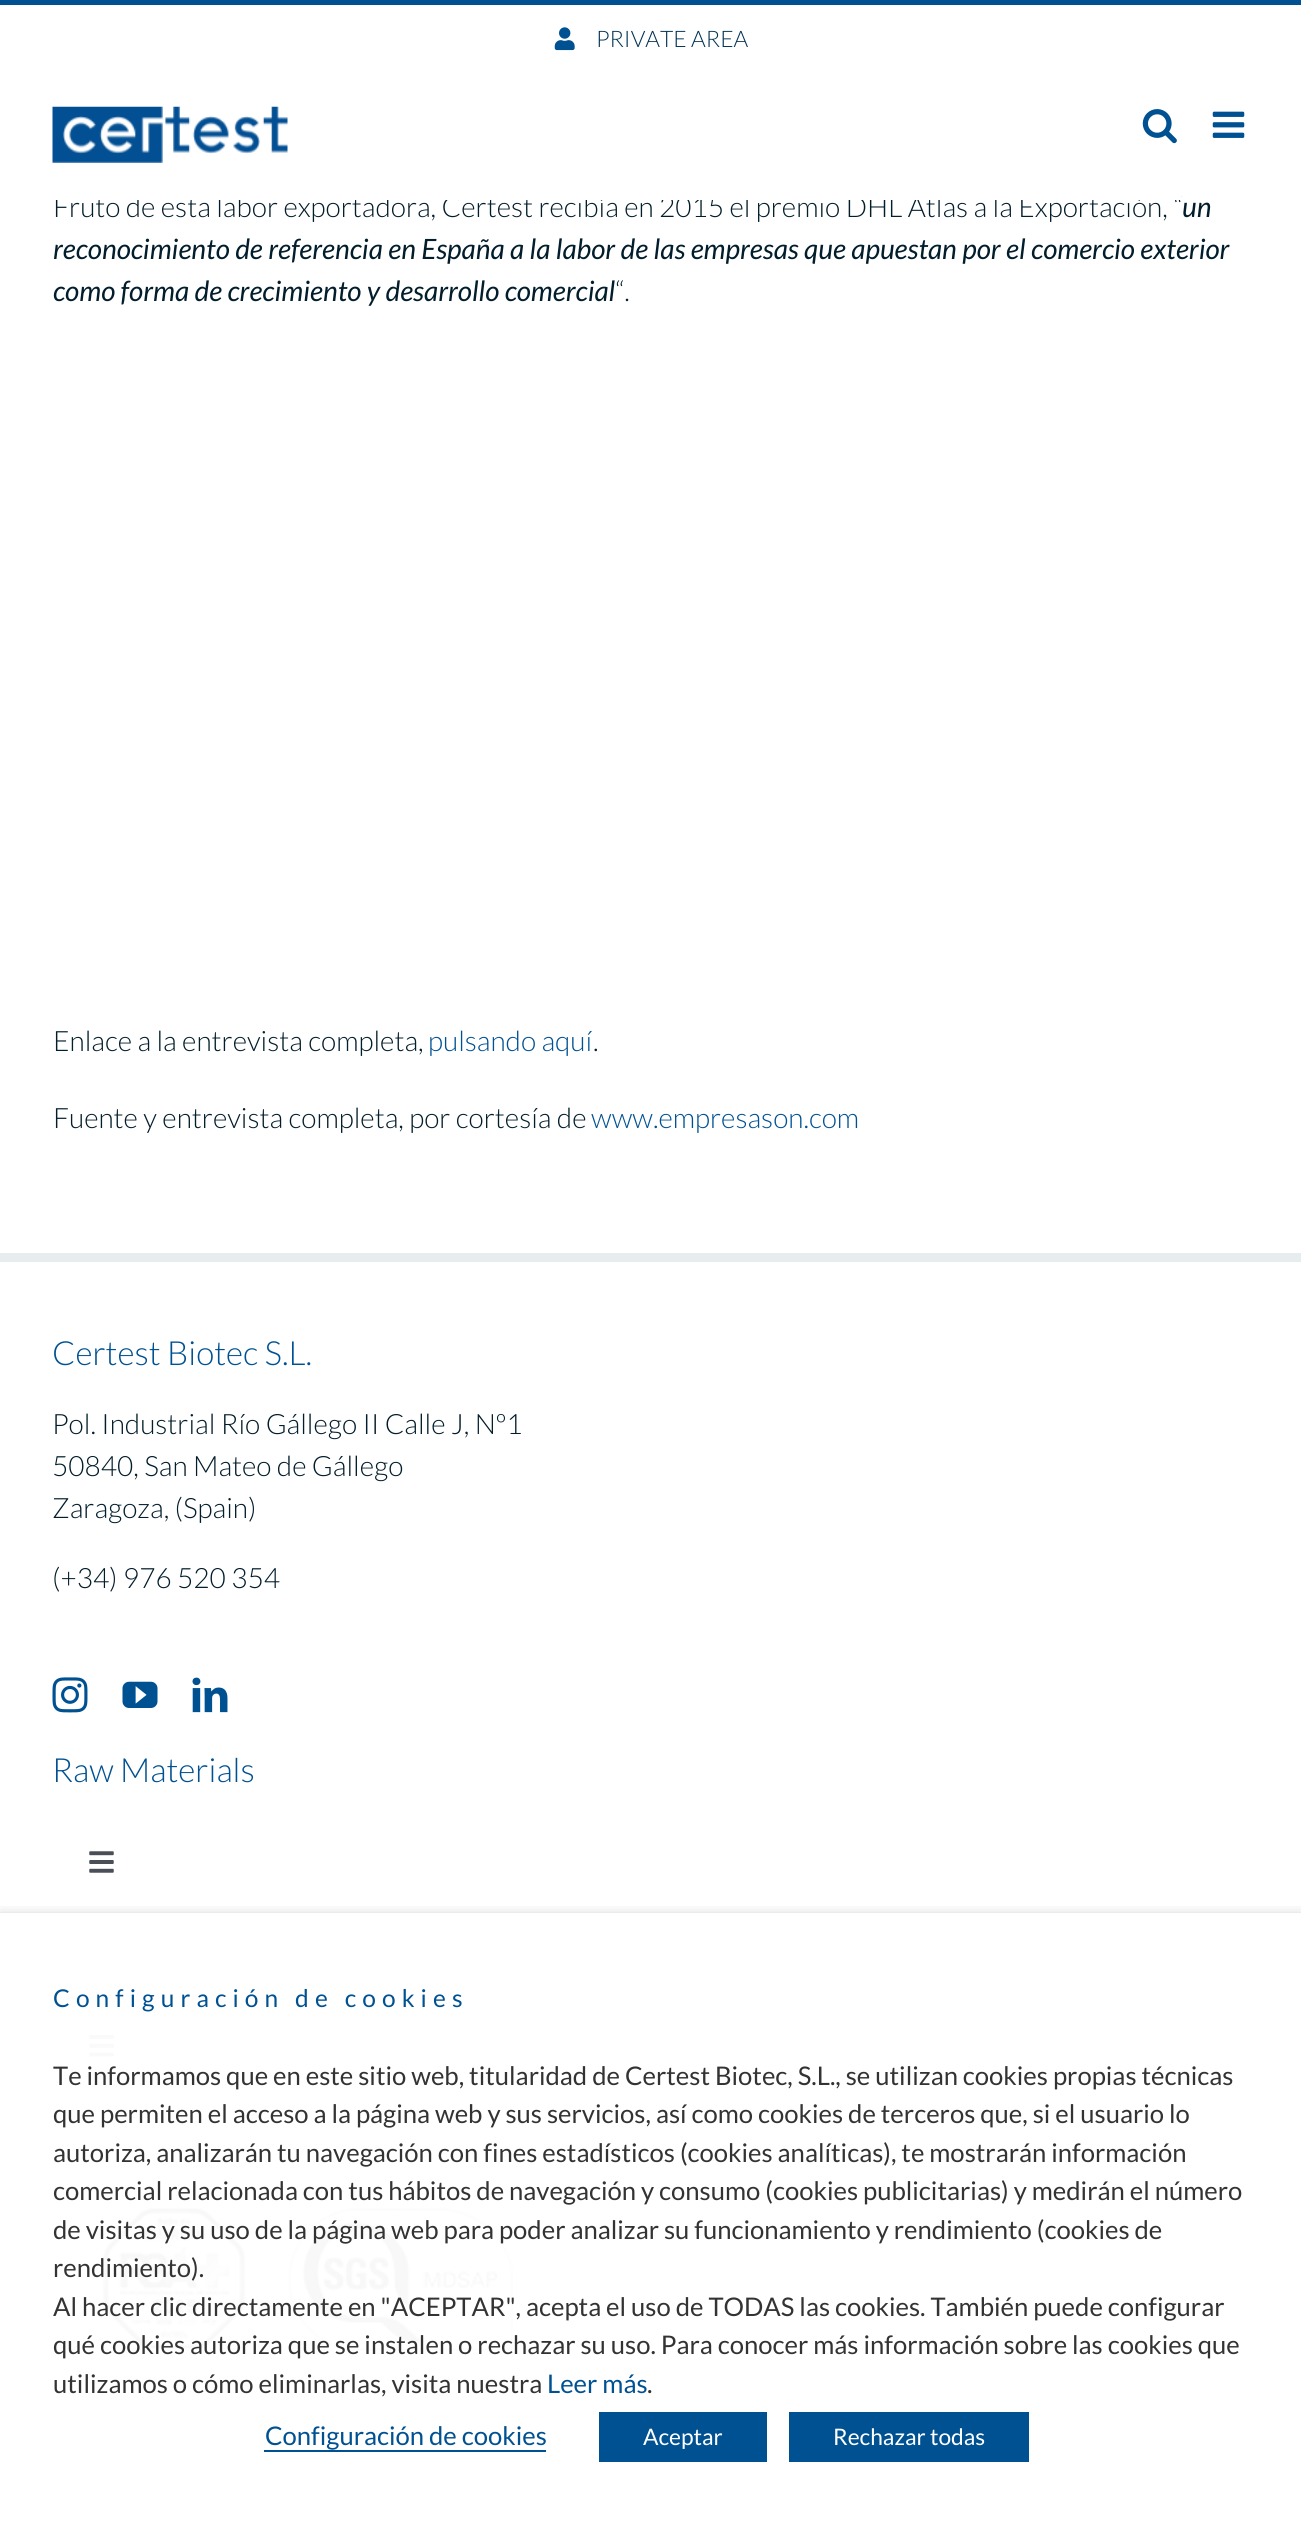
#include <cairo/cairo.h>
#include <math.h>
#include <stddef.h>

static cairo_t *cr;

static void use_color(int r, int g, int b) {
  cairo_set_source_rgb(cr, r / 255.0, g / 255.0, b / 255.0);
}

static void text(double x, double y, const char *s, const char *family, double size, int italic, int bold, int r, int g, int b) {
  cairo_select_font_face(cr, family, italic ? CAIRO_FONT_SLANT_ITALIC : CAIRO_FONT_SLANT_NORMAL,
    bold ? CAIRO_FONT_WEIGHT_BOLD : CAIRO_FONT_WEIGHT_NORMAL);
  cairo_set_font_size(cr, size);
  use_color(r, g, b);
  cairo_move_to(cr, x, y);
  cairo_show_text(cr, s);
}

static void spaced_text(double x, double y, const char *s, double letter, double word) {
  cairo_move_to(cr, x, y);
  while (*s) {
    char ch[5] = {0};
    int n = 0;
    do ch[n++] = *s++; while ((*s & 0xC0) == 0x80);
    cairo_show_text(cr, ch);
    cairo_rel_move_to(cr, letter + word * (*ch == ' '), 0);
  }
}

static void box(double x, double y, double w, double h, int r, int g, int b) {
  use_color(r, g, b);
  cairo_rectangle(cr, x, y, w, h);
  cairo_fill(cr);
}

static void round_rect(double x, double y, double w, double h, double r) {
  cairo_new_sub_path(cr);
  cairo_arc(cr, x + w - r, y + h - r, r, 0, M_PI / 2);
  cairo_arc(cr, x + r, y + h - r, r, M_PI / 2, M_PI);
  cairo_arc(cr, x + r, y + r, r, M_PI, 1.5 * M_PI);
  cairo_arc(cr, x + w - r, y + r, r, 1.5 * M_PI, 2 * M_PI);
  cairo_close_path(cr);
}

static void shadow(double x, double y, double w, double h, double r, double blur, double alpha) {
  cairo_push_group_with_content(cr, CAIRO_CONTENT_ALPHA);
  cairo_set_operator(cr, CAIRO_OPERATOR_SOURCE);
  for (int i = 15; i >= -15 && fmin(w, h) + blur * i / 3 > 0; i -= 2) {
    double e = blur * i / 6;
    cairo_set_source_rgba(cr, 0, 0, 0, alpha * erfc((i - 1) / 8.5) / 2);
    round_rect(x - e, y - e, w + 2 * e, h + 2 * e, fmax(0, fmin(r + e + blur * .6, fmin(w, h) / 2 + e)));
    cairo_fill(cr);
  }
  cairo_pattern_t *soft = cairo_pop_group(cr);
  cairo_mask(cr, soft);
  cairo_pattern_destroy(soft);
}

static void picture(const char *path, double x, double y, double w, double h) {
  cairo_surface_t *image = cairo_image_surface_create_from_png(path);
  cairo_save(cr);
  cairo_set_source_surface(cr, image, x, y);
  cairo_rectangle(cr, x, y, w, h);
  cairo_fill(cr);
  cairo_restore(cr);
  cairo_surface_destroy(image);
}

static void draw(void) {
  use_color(255, 255, 255);
  cairo_paint(cr);
  box(0, 0, 1301, 5, 0, 81, 146);
  picture("img_01.png", 554, 27, 21, 24);
  picture("img_02.png", 52, 106, 236, 57);
  picture("img_03.png", 1142, 109, 35, 35);
  picture("img_04.png", 1212, 111, 33, 27);
  box(0, 1253, 1301, 9, 231, 236, 238);
  picture("img_05.png", 52, 1677, 36, 36);
  picture("img_06.png", 122, 1681, 36, 27);
  picture("img_07.png", 192, 1677, 36, 36);
  picture("img_08.png", 89, 1851, 25, 22);
  picture("img_09.png", 89, 2035, 25, 22);
  picture("img_10.png", 102, 2208, 412, 143);
  cairo_save(cr);
  cairo_rectangle(cr, 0, 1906, 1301, 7);
  cairo_clip(cr);
  use_color(0, 0, 0);
  shadow(0, 1922, 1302, 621, 0, 9, 0.5);
  cairo_restore(cr);
  box(264, 2450, 282, 2, 0, 81, 146);
  box(599, 2412, 168, 50, 0, 81, 146);
  box(789, 2412, 240, 50, 0, 81, 146);
  text(596, 47, "PRIVATE AREA", "Lato Light", 22.75, 0, 0, 1, 50, 84);
  text(53, 217, "Fruto de esta labor exportadora, Certest recibía en 2015 el premio DHL Atlas a la Exportación, “", "Lato Light", 28, 0, 0, 2, 29, 43);
  box(55, 196, 1126, 4, 255, 255, 255);
  text(1182, 217, "un", "Lato", 28, 1, 0, 2, 29, 43);
  text(53, 259, "reconocimiento de referencia en España a la labor de las empresas que apuestan por el comercio exterior", "Lato", 28, 1, 0, 2, 29, 43);
  text(53, 301, "como forma de crecimiento y desarrollo comercial", "Lato", 28, 1, 0, 2, 29, 43);
  text(615, 301, "“.", "Lato Light", 28, 0, 0, 2, 29, 43);
  text(53, 1051, "Enlace a la entrevista completa,", "Lato Light", 28, 0, 0, 2, 29, 43);
  text(428, 1051, "pulsando aquí", "Lato Light", 28, 0, 0, 0, 81, 146);
  text(593, 1051, ".", "Lato Light", 28, 0, 0, 2, 29, 43);
  text(53, 1128, "Fuente y entrevista completa, por cortesía de", "Lato Light", 28, 0, 0, 2, 29, 43);
  text(591, 1128, "www.empresason.com", "Lato Light", 28, 0, 0, 0, 81, 146);
  text(52, 1365, "Certest Biotec S.L.", "Lato Light", 33.25, 0, 0, 0, 81, 146);
  text(52, 1434, "Pol. Industrial Río Gállego II Calle J, Nº1", "Lato Light", 28, 0, 0, 2, 29, 43);
  text(52, 1476, "50840, San Mateo de Gállego", "Lato Light", 28, 0, 0, 2, 29, 43);
  text(52, 1518, "Zaragoza, (Spain)", "Lato Light", 28, 0, 0, 2, 29, 43);
  text(52, 1588, "(+34) 976 520 354", "Lato Light", 28, 0, 0, 2, 29, 43);
  text(52, 1782, "Raw Materials", "Lato Light", 33.25, 0, 0, 0, 81, 146);
  cairo_select_font_face(cr, "Lato", CAIRO_FONT_SLANT_NORMAL, CAIRO_FONT_WEIGHT_NORMAL);
  cairo_set_font_size(cr, 24.5);
  spaced_text(53, 2007, "Configuración de cookies", 6.1, 0);
  text(53, 2085, "Te informamos que en este sitio web, titularidad de Certest Biotec, S.L., se utilizan cookies propias técnicas", "Lato", 25.65, 0, 0, 51, 51, 51);
  text(53, 2123, "que permiten el acceso a la página web y sus servicios, así como cookies de terceros que, si el usuario lo", "Lato", 25.65, 0, 0, 51, 51, 51);
  text(53, 2162, "autoriza, analizarán tu navegación con fines estadísticos (cookies analíticas), te mostrarán información", "Lato", 25.65, 0, 0, 51, 51, 51);
  text(53, 2200, "comercial relacionada con tus hábitos de navegación y consumo (cookies publicitarias) y medirán el número", "Lato", 25.65, 0, 0, 51, 51, 51);
  text(53, 2239, "de visitas y su uso de la página web para poder analizar su funcionamiento y rendimiento (cookies de", "Lato", 25.65, 0, 0, 51, 51, 51);
  text(53, 2277, "rendimiento).", "Lato", 25.65, 0, 0, 51, 51, 51);
  text(53, 2316, "Al hacer clic directamente en \"ACEPTAR\", acepta el uso de TODAS las cookies. También puede configurar", "Lato", 25.65, 0, 0, 51, 51, 51);
  text(53, 2354, "qué cookies autoriza que se instalen o rechazar su uso. Para conocer más información sobre las cookies que", "Lato", 25.65, 0, 0, 51, 51, 51);
  text(53, 2393, "utilizamos o cómo eliminarlas, visita nuestra", "Lato", 25.65, 0, 0, 51, 51, 51);
  text(547, 2393, "Leer más", "Lato", 25.65, 0, 0, 0, 81, 146);
  text(647, 2393, ".", "Lato", 25.65, 0, 0, 51, 51, 51);
  text(265, 2445, "Configuración de cookies", "Lato", 25.65, 0, 0, 0, 81, 146);
  text(643, 2445, "Aceptar", "Lato", 22.75, 0, 0, 255, 255, 255);
  text(833, 2445, "Rechazar todas", "Lato", 22.75, 0, 0, 255, 255, 255);
}

int main(void) {
  cairo_surface_t *surface = cairo_image_surface_create(CAIRO_FORMAT_RGB24, 1301, 2533);
  cr = cairo_create(surface);
  cairo_font_options_t *options = cairo_font_options_create();
  cairo_font_options_set_hint_metrics(options, CAIRO_HINT_METRICS_OFF);
  cairo_font_options_set_hint_style(options, CAIRO_HINT_STYLE_NONE);
  cairo_set_font_options(cr, options);
  cairo_set_miter_limit(cr, 4);
  draw();
  cairo_surface_write_to_png(surface, "out.png");
  cairo_font_options_destroy(options);
  cairo_destroy(cr);
  cairo_surface_destroy(surface);
  return 0;
}
